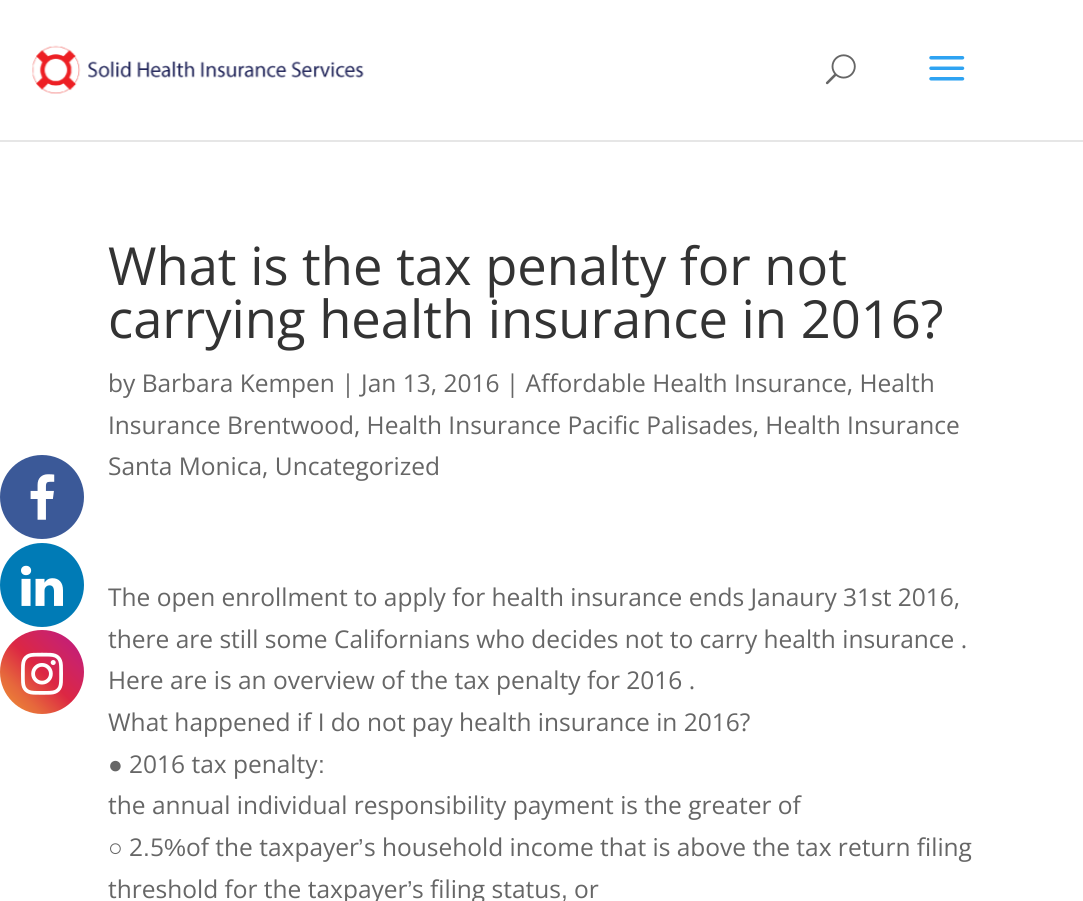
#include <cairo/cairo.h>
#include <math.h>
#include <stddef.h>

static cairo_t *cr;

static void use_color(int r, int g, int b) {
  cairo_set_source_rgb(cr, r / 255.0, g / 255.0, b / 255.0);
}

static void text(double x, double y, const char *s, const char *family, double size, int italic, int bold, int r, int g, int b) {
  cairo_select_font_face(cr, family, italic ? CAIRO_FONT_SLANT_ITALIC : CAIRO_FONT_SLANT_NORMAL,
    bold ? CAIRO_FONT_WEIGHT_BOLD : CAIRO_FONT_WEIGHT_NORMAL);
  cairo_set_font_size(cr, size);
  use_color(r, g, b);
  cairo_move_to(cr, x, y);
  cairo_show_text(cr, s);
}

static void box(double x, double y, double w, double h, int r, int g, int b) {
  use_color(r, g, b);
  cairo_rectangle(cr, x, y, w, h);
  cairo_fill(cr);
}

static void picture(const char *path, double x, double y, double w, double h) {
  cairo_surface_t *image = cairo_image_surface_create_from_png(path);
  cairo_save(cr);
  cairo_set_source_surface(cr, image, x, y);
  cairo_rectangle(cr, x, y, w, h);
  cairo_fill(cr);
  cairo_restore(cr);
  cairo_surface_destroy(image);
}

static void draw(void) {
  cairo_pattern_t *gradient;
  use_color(255, 255, 255);
  cairo_paint(cr);
  use_color(59, 89, 152);
  cairo_arc(cr, 42, 497, 42, 0, 2 * M_PI);
  cairo_fill(cr);
  picture("img_01.png", 30, 474, 25, 46);
  use_color(0, 123, 182);
  cairo_arc(cr, 42, 585, 42, 0, 2 * M_PI);
  cairo_fill(cr);
  picture("img_02.png", 21, 565, 42, 41);
  gradient = cairo_pattern_create_linear(0, 714, 84, 630);
  cairo_pattern_add_color_stop_rgba(gradient, 0, 0.941, 0.58, 0.2, 1);
  cairo_pattern_add_color_stop_rgba(gradient, 0.25, 0.902, 0.408, 0.235, 1);
  cairo_pattern_add_color_stop_rgba(gradient, 0.5, 0.863, 0.153, 0.263, 1);
  cairo_pattern_add_color_stop_rgba(gradient, 0.75, 0.8, 0.137, 0.4, 1);
  cairo_pattern_add_color_stop_rgba(gradient, 1, 0.737, 0.094, 0.533, 1);
  cairo_set_source(cr, gradient);
  cairo_pattern_destroy(gradient);
  cairo_arc(cr, 42, 672, 42, 0, 2 * M_PI);
  cairo_fill(cr);
  picture("img_03.png", 21, 652, 42, 43);
  box(0, 140, 1083, 2, 230, 230, 230);
  picture("img_04.png", 32, 45, 332, 49);
  picture("img_05.png", 825, 54, 31, 31);
  picture("img_06.png", 929, 56, 36, 25);
  text(108, 285, "What is the tax penalty for not", "Open Sans", 52.5, 0, 0, 51, 51, 51);
  text(108, 338, "carrying health insurance in 2016?", "Open Sans", 52.5, 0, 0, 51, 51, 51);
  text(108, 392, "by Barbara Kempen | Jan 13, 2016 | Affordable Health Insurance, Health", "Open Sans", 24.5, 0, 0, 102, 102, 102);
  text(108, 434, "Insurance Brentwood, Health Insurance Pacific Palisades, Health Insurance", "Open Sans", 24.5, 0, 0, 102, 102, 102);
  text(108, 475, "Santa Monica, Uncategorized", "Open Sans", 24.5, 0, 0, 102, 102, 102);
  text(108, 606, "The open enrollment to apply for health insurance ends Janaury 31st 2016,", "Open Sans", 24.5, 0, 0, 102, 102, 102);
  text(108, 648, "there are still some Californians who decides not to carry health insurance .", "Open Sans", 24.5, 0, 0, 102, 102, 102);
  text(108, 689, "Here are is an overview of the tax penalty for 2016 .", "Open Sans", 24.5, 0, 0, 102, 102, 102);
  text(108, 731, "What happened if I do not pay health insurance in 2016?", "Open Sans", 24.5, 0, 0, 102, 102, 102);
  text(108, 773, "●", "Liberation Sans", 24.5, 0, 0, 102, 102, 102);
  text(129, 773, "2016 tax penalty", "Open Sans", 24.5, 0, 0, 102, 102, 102);
  text(318, 773, ":", "Liberation Sans", 24.5, 0, 0, 102, 102, 102);
  text(108, 814, "the annual individual responsibility payment is the greater of", "Open Sans", 24.5, 0, 0, 102, 102, 102);
  text(129, 856, "2", "Open Sans", 24.5, 0, 0, 102, 102, 102);
  text(150, 856, "5", "Open Sans", 24.5, 0, 0, 102, 102, 102);
  text(164, 856, "%", "Liberation Sans", 24.5, 0, 0, 102, 102, 102);
  text(186, 856, "of the taxpayer", "Open Sans", 24.5, 0, 0, 102, 102, 102);
  text(358, 856, "’", "Liberation Sans", 24.5, 0, 0, 102, 102, 102);
  text(364, 856, "s household income that is above the tax return filing", "Open Sans", 24.5, 0, 0, 102, 102, 102);
  text(108, 856, "○", "Liberation Sans", 24.5, 0, 0, 102, 102, 102);
  text(143, 856, ".", "Liberation Sans", 24.5, 0, 0, 102, 102, 102);
  text(108, 898, "threshold for the taxpayer", "Open Sans", 24.5, 0, 0, 102, 102, 102);
  text(407, 898, "’", "Liberation Sans", 24.5, 0, 0, 102, 102, 102);
  text(412, 898, "s filing status", "Open Sans", 24.5, 0, 0, 102, 102, 102);
  text(561, 898, ",", "Liberation Sans", 24.5, 0, 0, 102, 102, 102);
  text(574, 898, "or", "Open Sans", 24.5, 0, 0, 102, 102, 102);
}

int main(void) {
  cairo_surface_t *surface = cairo_image_surface_create(CAIRO_FORMAT_RGB24, 1083, 901);
  cr = cairo_create(surface);
  cairo_font_options_t *options = cairo_font_options_create();
  cairo_font_options_set_hint_metrics(options, CAIRO_HINT_METRICS_OFF);
  cairo_font_options_set_hint_style(options, CAIRO_HINT_STYLE_NONE);
  cairo_set_font_options(cr, options);
  cairo_set_miter_limit(cr, 4);
  draw();
  cairo_surface_write_to_png(surface, "out.png");
  cairo_font_options_destroy(options);
  cairo_destroy(cr);
  cairo_surface_destroy(surface);
  return 0;
}
